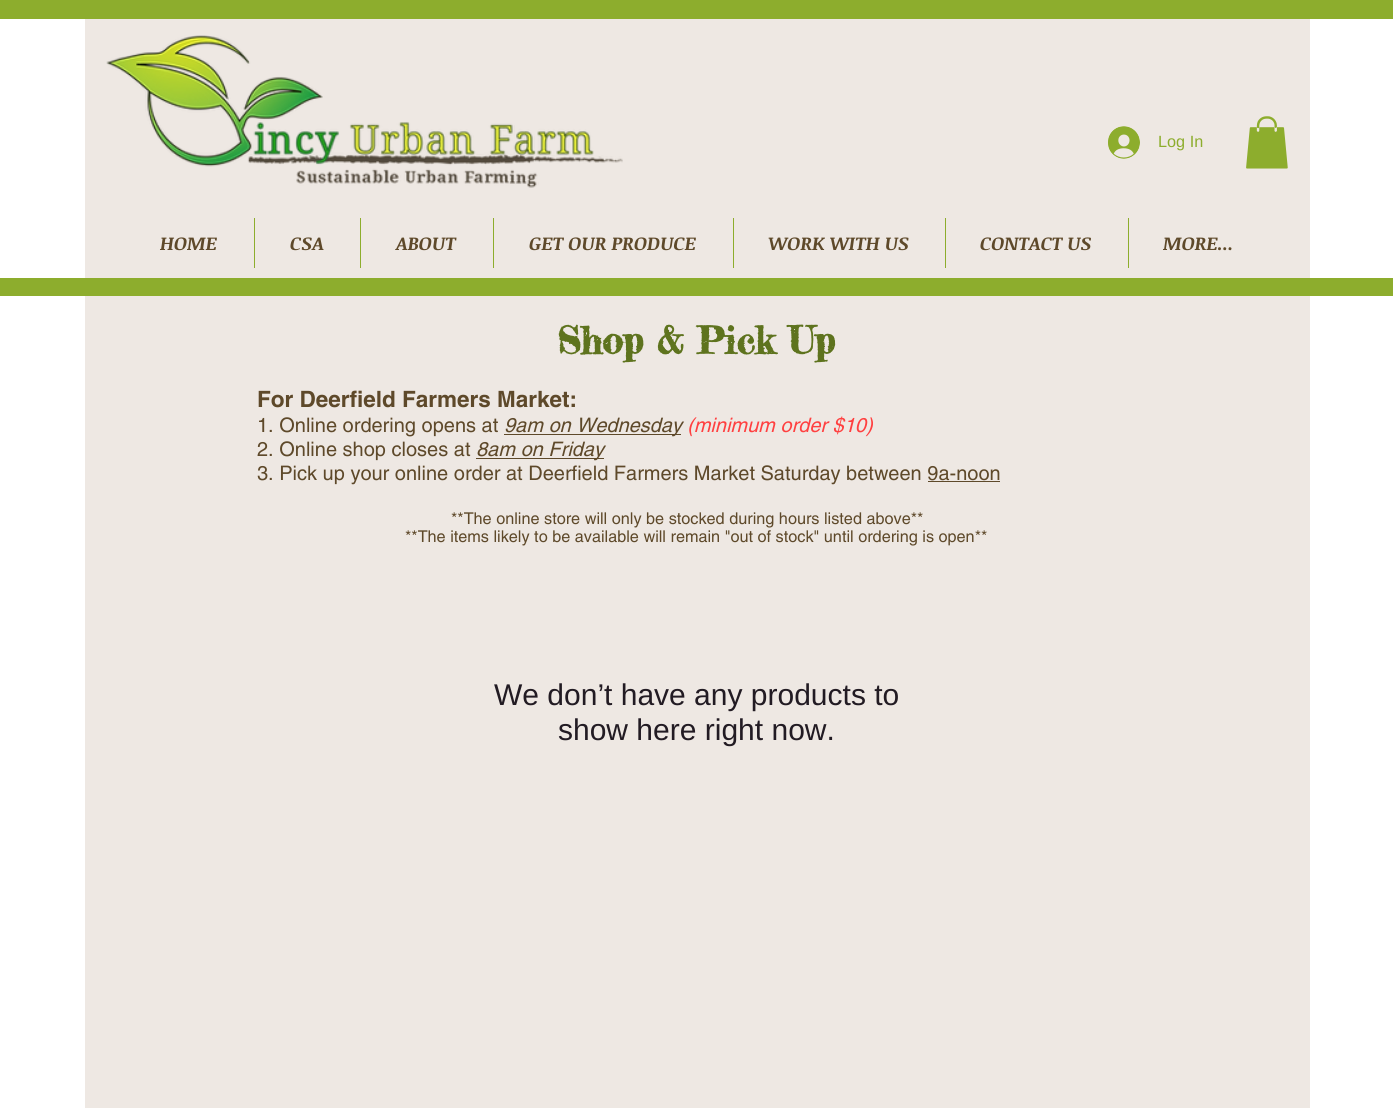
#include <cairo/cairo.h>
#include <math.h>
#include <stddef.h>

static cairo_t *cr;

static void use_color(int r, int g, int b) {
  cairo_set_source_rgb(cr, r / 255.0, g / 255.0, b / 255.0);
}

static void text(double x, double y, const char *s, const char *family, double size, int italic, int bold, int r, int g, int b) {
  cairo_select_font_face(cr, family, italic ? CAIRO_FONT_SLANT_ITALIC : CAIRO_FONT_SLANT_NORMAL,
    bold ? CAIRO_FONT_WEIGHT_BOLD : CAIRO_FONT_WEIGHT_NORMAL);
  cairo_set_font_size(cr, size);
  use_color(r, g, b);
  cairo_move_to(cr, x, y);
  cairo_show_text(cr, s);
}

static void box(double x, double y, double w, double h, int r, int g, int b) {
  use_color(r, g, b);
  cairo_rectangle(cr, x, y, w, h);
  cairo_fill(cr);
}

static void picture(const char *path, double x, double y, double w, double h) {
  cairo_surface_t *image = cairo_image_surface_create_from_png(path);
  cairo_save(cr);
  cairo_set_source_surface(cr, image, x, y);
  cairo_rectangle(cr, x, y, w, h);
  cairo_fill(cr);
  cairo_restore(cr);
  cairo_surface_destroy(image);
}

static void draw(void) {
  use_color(255, 255, 255);
  cairo_paint(cr);
  box(0, 0, 1393, 19, 141, 173, 45);
  box(0, 278, 1393, 18, 141, 173, 45);
  box(85, 19, 1225, 259, 238, 232, 227);
  picture("img_01.png", 106, 35, 517, 153);
  picture("img_02.png", 1108, 126, 32, 33);
  picture("img_03.png", 1246, 116, 42, 53);
  box(254, 218, 1, 50, 141, 173, 45);
  box(360, 218, 1, 50, 141, 173, 45);
  box(493, 218, 1, 50, 141, 173, 45);
  box(733, 218, 1, 50, 141, 173, 45);
  box(945, 218, 1, 50, 141, 173, 45);
  box(1128, 218, 1, 50, 141, 173, 45);
  box(85, 296, 1225, 812, 238, 232, 227);
  box(504, 434, 177, 1, 94, 73, 42);
  box(476, 458, 128, 1, 94, 73, 42);
  box(928, 481, 72, 1, 94, 73, 42);
  text(1158, 147, "Log In", "Liberation Sans", 16.25, 0, 0, 141, 173, 45);
  text(160, 250, "HOME", "Noticia Text", 18.75, 1, 1, 94, 73, 42);
  text(290, 250, "CSA", "Noticia Text", 18.75, 1, 1, 94, 73, 42);
  text(396, 250, "ABOUT", "Noticia Text", 18.75, 1, 1, 94, 73, 42);
  text(529, 250, "GET OUR PRODUCE", "Noticia Text", 18.75, 1, 1, 94, 73, 42);
  text(768, 250, "WORK WITH US", "Noticia Text", 18.75, 1, 1, 94, 73, 42);
  text(980, 250, "CONTACT US", "Noticia Text", 18.75, 1, 1, 94, 73, 42);
  text(1163, 250, "MORE...", "Noticia Text", 18.75, 1, 1, 94, 73, 42);
  text(557, 354, "Shop & Pick Up", "Fredericka the Great", 37.5, 0, 1, 94, 115, 30);
  text(257, 407, "For Deerfield Farmers Market:", "helvetica", 22.5, 0, 1, 94, 73, 42);
  text(257, 432, "1. Online ordering opens at", "helvetica", 20, 0, 0, 94, 73, 42);
  text(504, 432, "9am on Wednesday", "helvetica", 20, 1, 0, 94, 73, 42);
  text(687, 432, "(minimum order $10)", "helvetica", 20, 1, 0, 255, 64, 64);
  text(257, 456, "2. Online shop closes at", "helvetica", 20, 0, 0, 94, 73, 42);
  text(476, 456, "8am on Friday", "helvetica", 20, 1, 0, 94, 73, 42);
  text(257, 480, "3. Pick up your online order at Deerfield Farmers Market Saturday between 9a-noon", "helvetica", 20, 0, 0, 94, 73, 42);
  text(451, 524, "**The online store will only be stocked during hours listed above**", "helvetica", 16.25, 0, 0, 94, 73, 42);
  text(405, 542, "**The items likely to be available will remain \"out of stock\" until ordering is open**", "helvetica", 16.25, 0, 0, 94, 73, 42);
  text(494, 705, "We don’t have any products to", "Liberation Sans", 30, 0, 0, 34, 27, 35);
  text(558, 740, "show here right now.", "Liberation Sans", 30, 0, 0, 34, 27, 35);
}

int main(void) {
  cairo_surface_t *surface = cairo_image_surface_create(CAIRO_FORMAT_RGB24, 1393, 1108);
  cr = cairo_create(surface);
  cairo_font_options_t *options = cairo_font_options_create();
  cairo_font_options_set_hint_metrics(options, CAIRO_HINT_METRICS_OFF);
  cairo_font_options_set_hint_style(options, CAIRO_HINT_STYLE_NONE);
  cairo_set_font_options(cr, options);
  cairo_set_miter_limit(cr, 4);
  draw();
  cairo_surface_write_to_png(surface, "out.png");
  cairo_font_options_destroy(options);
  cairo_destroy(cr);
  cairo_surface_destroy(surface);
  return 0;
}
